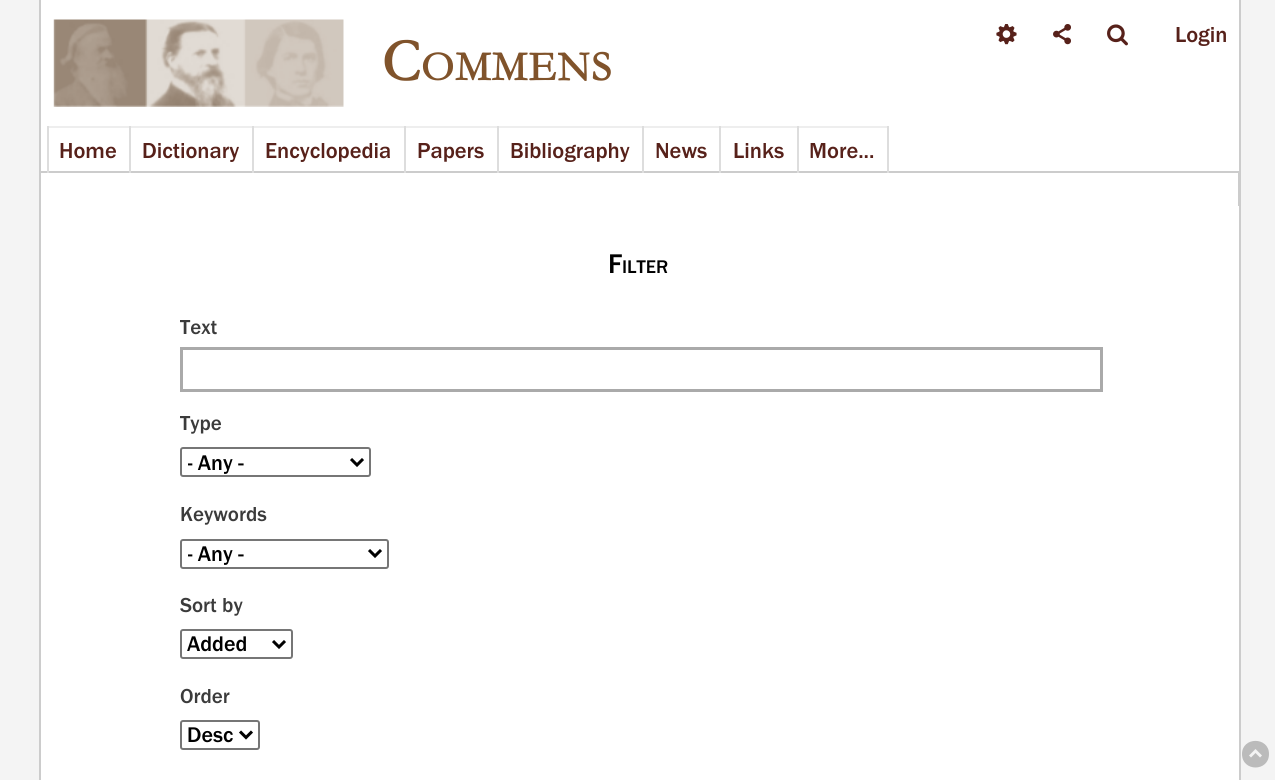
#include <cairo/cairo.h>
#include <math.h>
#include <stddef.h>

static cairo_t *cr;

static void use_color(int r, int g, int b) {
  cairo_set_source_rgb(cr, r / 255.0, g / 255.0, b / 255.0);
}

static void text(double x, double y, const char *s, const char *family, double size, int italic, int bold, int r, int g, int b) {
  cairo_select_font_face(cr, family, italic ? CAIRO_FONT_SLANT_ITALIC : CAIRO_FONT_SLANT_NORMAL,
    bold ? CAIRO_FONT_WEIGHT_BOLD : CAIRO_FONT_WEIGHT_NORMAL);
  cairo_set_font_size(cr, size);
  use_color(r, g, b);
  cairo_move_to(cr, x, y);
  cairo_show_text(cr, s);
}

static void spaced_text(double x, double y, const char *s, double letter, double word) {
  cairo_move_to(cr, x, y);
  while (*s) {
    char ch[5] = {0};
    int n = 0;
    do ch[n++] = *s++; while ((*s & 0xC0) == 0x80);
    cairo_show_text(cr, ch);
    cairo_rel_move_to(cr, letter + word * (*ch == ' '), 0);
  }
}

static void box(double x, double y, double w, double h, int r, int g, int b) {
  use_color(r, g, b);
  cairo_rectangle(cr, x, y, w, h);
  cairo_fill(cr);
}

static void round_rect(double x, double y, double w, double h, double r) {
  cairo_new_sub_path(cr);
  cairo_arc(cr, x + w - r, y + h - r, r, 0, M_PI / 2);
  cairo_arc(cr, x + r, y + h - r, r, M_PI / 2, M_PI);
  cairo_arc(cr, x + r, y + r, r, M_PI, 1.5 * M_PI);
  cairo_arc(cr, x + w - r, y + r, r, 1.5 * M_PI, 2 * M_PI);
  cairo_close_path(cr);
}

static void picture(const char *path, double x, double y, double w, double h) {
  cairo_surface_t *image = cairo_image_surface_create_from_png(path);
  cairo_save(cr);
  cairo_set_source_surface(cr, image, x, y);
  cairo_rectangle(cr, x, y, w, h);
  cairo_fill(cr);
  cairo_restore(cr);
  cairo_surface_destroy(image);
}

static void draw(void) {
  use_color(244, 244, 244);
  cairo_paint(cr);
  box(41, 173, 1198, 607, 255, 255, 255);
  box(1238, 0, 1, 206, 204, 204, 204);
  box(39, 171, 1200, 2, 204, 204, 204);
  box(39, 126, 2, 47, 204, 204, 204);
  box(41, 0, 1198, 171, 255, 255, 255);
  picture("img_01.png", 996, 24, 21, 21);
  picture("img_02.png", 1053, 24, 18, 21);
  picture("img_03.png", 1107, 24, 21, 22);
  box(47, 126, 841, 2, 238, 238, 238);
  box(47, 126, 2, 47, 221, 221, 221);
  box(129, 126, 2, 47, 221, 221, 221);
  box(252, 126, 2, 47, 221, 221, 221);
  box(404, 126, 2, 47, 221, 221, 221);
  box(497, 126, 2, 47, 221, 221, 221);
  box(642, 126, 2, 47, 221, 221, 221);
  box(719, 126, 2, 47, 221, 221, 221);
  box(887, 126, 2, 47, 221, 221, 221);
  box(797, 126, 2, 47, 221, 221, 221);
  box(39, 0, 2, 126, 204, 204, 204);
  picture("img_04.png", 53, 19, 291, 88);
  box(1239, 0, 2, 780, 204, 204, 204);
  box(39, 173, 2, 607, 204, 204, 204);
  cairo_rectangle(cr, 181.5, 348.5, 920, 42);
  use_color(170, 170, 170);
  cairo_set_line_width(cr, 3);
  cairo_stroke(cr);
  round_rect(181, 448, 189, 28, 2);
  use_color(118, 118, 118);
  cairo_set_line_width(cr, 2);
  cairo_stroke(cr);
  cairo_new_path(cr);
  cairo_move_to(cr, 351, 459);
  cairo_line_to(cr, 357, 465);
  cairo_line_to(cr, 363, 459);
  use_color(0, 0, 0);
  cairo_set_line_width(cr, 3);
  cairo_stroke(cr);
  round_rect(181, 540, 207, 28, 2);
  use_color(118, 118, 118);
  cairo_set_line_width(cr, 2);
  cairo_stroke(cr);
  cairo_new_path(cr);
  cairo_move_to(cr, 369, 550);
  cairo_line_to(cr, 375, 556);
  cairo_line_to(cr, 381, 550);
  use_color(0, 0, 0);
  cairo_set_line_width(cr, 3);
  cairo_stroke(cr);
  round_rect(181, 630, 111, 28, 2);
  use_color(118, 118, 118);
  cairo_set_line_width(cr, 2);
  cairo_stroke(cr);
  cairo_new_path(cr);
  cairo_move_to(cr, 273, 641);
  cairo_line_to(cr, 279, 647);
  cairo_line_to(cr, 285, 641);
  use_color(0, 0, 0);
  cairo_set_line_width(cr, 3);
  cairo_stroke(cr);
  round_rect(181, 721, 78, 28, 2);
  use_color(118, 118, 118);
  cairo_set_line_width(cr, 2);
  cairo_stroke(cr);
  cairo_new_path(cr);
  cairo_move_to(cr, 240, 731.5);
  cairo_line_to(cr, 246, 737.5);
  cairo_line_to(cr, 252, 731.5);
  use_color(0, 0, 0);
  cairo_set_line_width(cr, 3);
  cairo_stroke(cr);
  use_color(187, 187, 187);
  cairo_new_path(cr);
  cairo_move_to(cr, 1269, 754);
  cairo_curve_to(cr, 1269, 772, 1242, 772, 1242, 754);
  cairo_curve_to(cr, 1242, 736.5, 1269, 736.5, 1269, 754);
  cairo_close_path(cr);
  cairo_move_to(cr, 1260, 757.5);
  cairo_line_to(cr, 1262, 755.5);
  cairo_line_to(cr, 1255.5, 749);
  cairo_line_to(cr, 1249, 755.5);
  cairo_line_to(cr, 1251, 757.5);
  cairo_line_to(cr, 1255.5, 753);
  cairo_close_path(cr);
  cairo_fill(cr);
  text(1175, 42, "Login", "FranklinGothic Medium", 22.5, 0, 0, 87, 33, 26);
  text(59, 158, "Home", "FranklinGothic Medium", 22.5, 0, 0, 87, 33, 26);
  text(142, 158, "Dictionary", "FranklinGothic Medium", 22.5, 0, 0, 87, 33, 26);
  text(265, 158, "Encyclopedia", "FranklinGothic Medium", 22.5, 0, 0, 87, 33, 26);
  text(417, 158, "Papers", "FranklinGothic Medium", 22.5, 0, 0, 87, 33, 26);
  text(510, 158, "Bibliography", "FranklinGothic Medium", 22.5, 0, 0, 87, 33, 26);
  text(655, 158, "News", "FranklinGothic Medium", 22.5, 0, 0, 87, 33, 26);
  text(733, 158, "Links", "FranklinGothic Medium", 22.5, 0, 0, 87, 33, 26);
  text(809, 158, "More...", "FranklinGothic Medium", 22.5, 0, 0, 87, 33, 26);
  cairo_select_font_face(cr, "Garamond", CAIRO_FONT_SLANT_NORMAL, CAIRO_FONT_WEIGHT_BOLD);
  cairo_set_font_size(cr, 60);
  use_color(128, 83, 43);
  spaced_text(382, 80, "C", 1.5, 0);
  cairo_set_font_size(cr, 42);
  spaced_text(421, 80, "OMMENS", 1.5, 0);
  text(608, 273, "F", "FranklinGothic Medium", 28, 0, 0, 0, 0, 0);
  text(622, 273, "ILTER", "FranklinGothic Medium", 19, 0, 0, 0, 0, 0);
  text(180, 334, "Text", "FranklinGothic Medium", 21, 0, 0, 59, 59, 59);
  text(180, 430, "Type", "FranklinGothic Medium", 21, 0, 0, 59, 59, 59);
  cairo_save(cr);
  cairo_rectangle(cr, 188, 449, 157, 27);
  cairo_clip(cr);
  text(187, 470, "- Any -", "FranklinGothic Medium", 22, 0, 0, 0, 0, 0);
  cairo_restore(cr);
  text(180, 521, "Keywords", "FranklinGothic Medium", 21, 0, 0, 59, 59, 59);
  cairo_save(cr);
  cairo_rectangle(cr, 188, 540, 175, 27);
  cairo_clip(cr);
  text(187, 561, "- Any -", "FranklinGothic Medium", 22, 0, 0, 0, 0, 0);
  cairo_restore(cr);
  text(180, 612, "Sort by", "FranklinGothic Medium", 21, 0, 0, 59, 59, 59);
  text(187, 651, "Added", "FranklinGothic Medium", 22, 0, 0, 0, 0, 0);
  text(180, 703, "Order", "FranklinGothic Medium", 21, 0, 0, 59, 59, 59);
  text(187, 742, "Desc", "FranklinGothic Medium", 22, 0, 0, 0, 0, 0);
}

int main(void) {
  cairo_surface_t *surface = cairo_image_surface_create(CAIRO_FORMAT_RGB24, 1275, 780);
  cr = cairo_create(surface);
  cairo_font_options_t *options = cairo_font_options_create();
  cairo_font_options_set_hint_metrics(options, CAIRO_HINT_METRICS_OFF);
  cairo_font_options_set_hint_style(options, CAIRO_HINT_STYLE_NONE);
  cairo_set_font_options(cr, options);
  cairo_set_miter_limit(cr, 4);
  draw();
  cairo_surface_write_to_png(surface, "out.png");
  cairo_font_options_destroy(options);
  cairo_destroy(cr);
  cairo_surface_destroy(surface);
  return 0;
}
